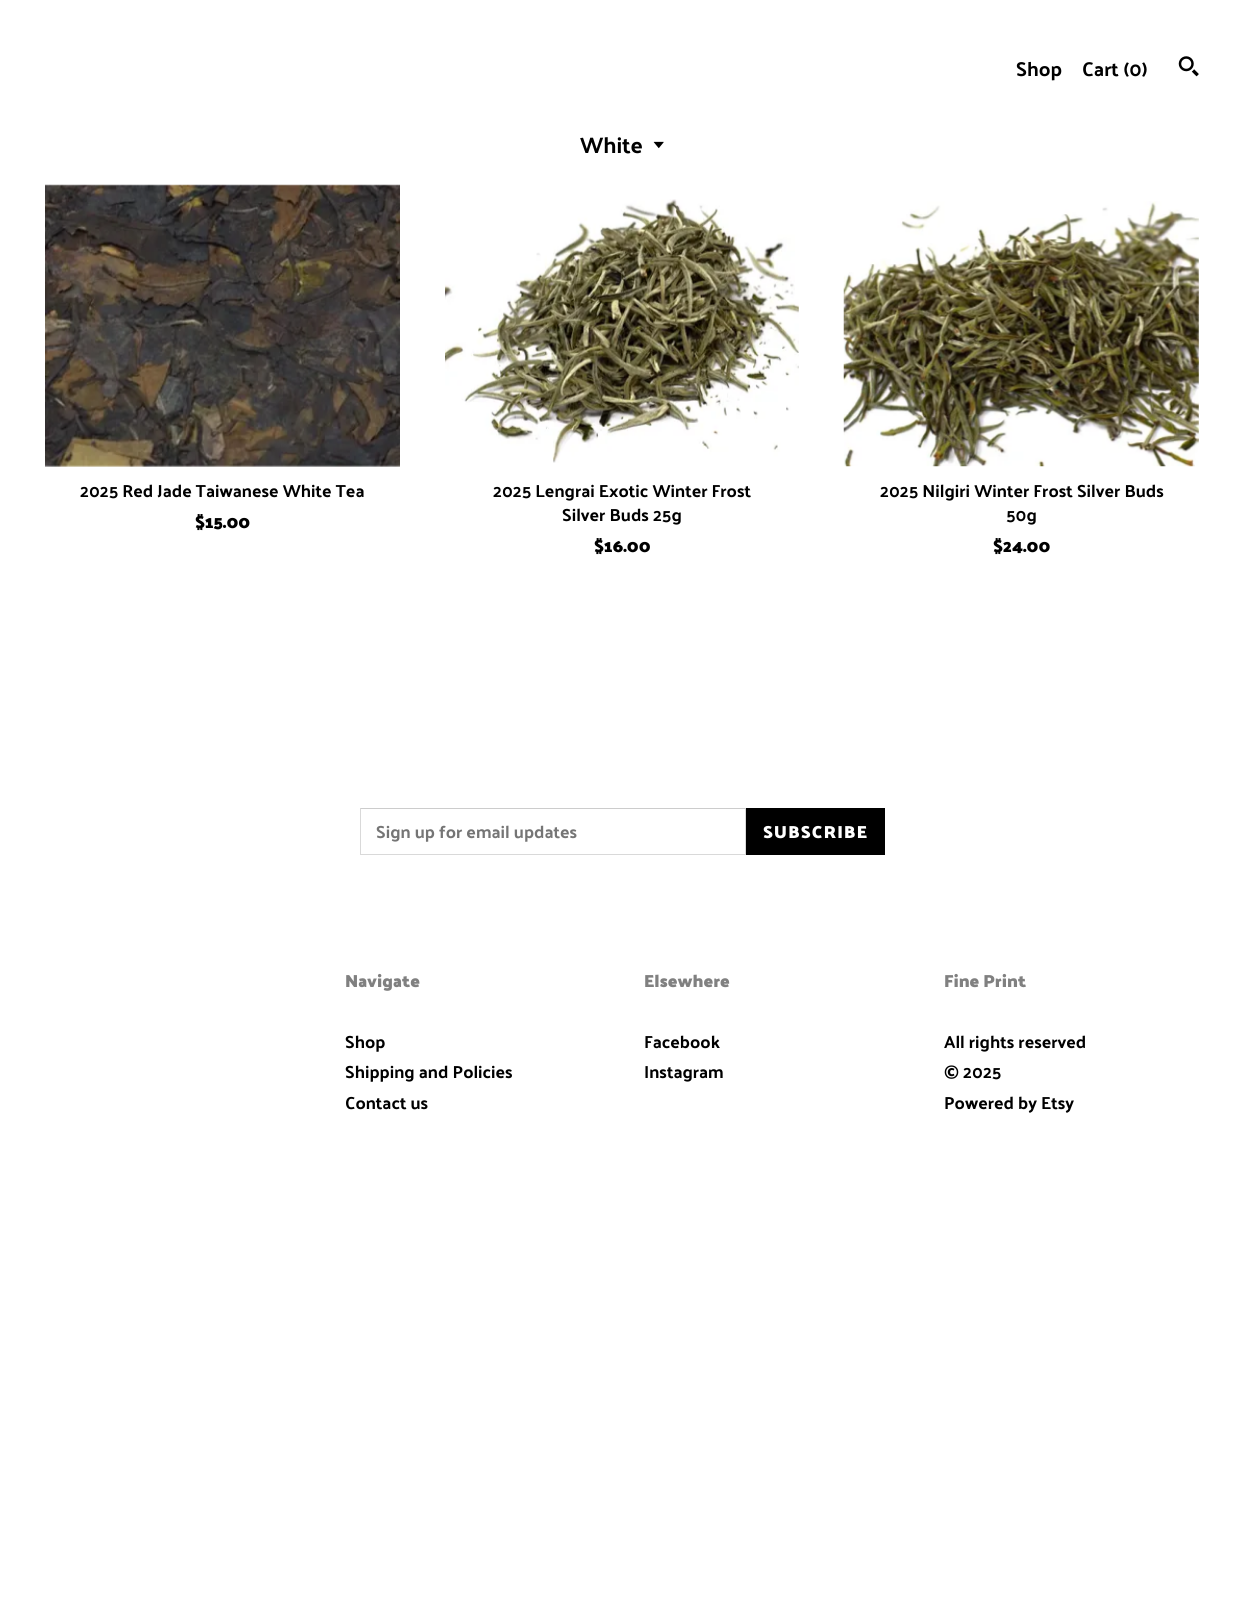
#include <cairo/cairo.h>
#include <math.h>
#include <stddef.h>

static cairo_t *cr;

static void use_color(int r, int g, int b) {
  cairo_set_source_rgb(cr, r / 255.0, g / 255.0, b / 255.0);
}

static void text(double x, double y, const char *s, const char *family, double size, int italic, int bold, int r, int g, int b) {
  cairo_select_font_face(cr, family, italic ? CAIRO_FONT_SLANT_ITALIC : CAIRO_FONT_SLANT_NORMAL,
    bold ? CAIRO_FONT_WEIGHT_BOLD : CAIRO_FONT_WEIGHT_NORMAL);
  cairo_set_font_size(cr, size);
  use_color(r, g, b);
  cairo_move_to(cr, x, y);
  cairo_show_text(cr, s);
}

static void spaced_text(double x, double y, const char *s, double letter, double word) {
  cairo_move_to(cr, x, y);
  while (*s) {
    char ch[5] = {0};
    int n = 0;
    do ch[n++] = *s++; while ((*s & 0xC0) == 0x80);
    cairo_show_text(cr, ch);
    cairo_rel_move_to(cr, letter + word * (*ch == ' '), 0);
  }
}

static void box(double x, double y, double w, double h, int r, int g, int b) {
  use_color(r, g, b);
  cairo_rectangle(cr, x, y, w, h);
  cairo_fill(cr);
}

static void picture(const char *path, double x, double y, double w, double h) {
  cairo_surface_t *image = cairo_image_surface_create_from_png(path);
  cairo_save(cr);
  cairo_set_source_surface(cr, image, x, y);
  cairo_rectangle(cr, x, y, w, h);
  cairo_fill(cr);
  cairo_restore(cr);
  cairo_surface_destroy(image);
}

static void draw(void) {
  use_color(255, 255, 255);
  cairo_paint(cr);
  picture("img_01.png", 1178, 56, 21, 21);
  picture("img_02.png", 653, 141, 11, 8);
  picture("img_03.png", 45, 184, 355, 283);
  picture("img_04.png", 445, 199, 354, 264);
  picture("img_05.png", 843, 201, 356, 266);
  use_color(204, 204, 204);
  cairo_new_path(cr);
  cairo_move_to(cr, 360, 808);
  cairo_line_to(cr, 746, 808);
  cairo_line_to(cr, 745, 809);
  cairo_line_to(cr, 361, 809);
  cairo_close_path(cr);
  cairo_fill(cr);
  cairo_set_source_rgba(cr, 0, 0, 0, 0.15);
  cairo_new_path(cr);
  cairo_move_to(cr, 746, 808);
  cairo_line_to(cr, 746, 855);
  cairo_line_to(cr, 745, 854);
  cairo_line_to(cr, 745, 809);
  cairo_close_path(cr);
  cairo_fill(cr);
  cairo_new_path(cr);
  cairo_move_to(cr, 746, 855);
  cairo_line_to(cr, 360, 855);
  cairo_line_to(cr, 361, 854);
  cairo_line_to(cr, 745, 854);
  cairo_close_path(cr);
  cairo_fill(cr);
  cairo_new_path(cr);
  cairo_move_to(cr, 360, 855);
  cairo_line_to(cr, 360, 808);
  cairo_line_to(cr, 361, 809);
  cairo_line_to(cr, 361, 854);
  cairo_close_path(cr);
  cairo_fill(cr);
  box(746, 808, 139, 47, 0, 0, 0);
  text(1016, 76, "Shop", "Palanquin Dark", 20, 0, 0, 0, 0, 0);
  text(1082, 76, "Cart (0)", "Palanquin Dark", 20, 0, 0, 0, 0, 0);
  text(580, 153, "White", "Palanquin Dark", 22.5, 0, 0, 0, 0, 0);
  text(80, 497, "2025 Red Jade Taiwanese White Tea", "Palanquin Dark", 17.5, 0, 0, 0, 0, 0);
  text(195, 528, "$15.00", "Palanquin Dark", 17.5, 0, 1, 0, 0, 0);
  text(493, 497, "2025 Lengrai Exotic Winter Frost", "Palanquin Dark", 17.5, 0, 0, 0, 0, 0);
  text(562, 521, "Silver Buds 25g", "Palanquin Dark", 17.5, 0, 0, 0, 0, 0);
  text(594, 552, "$16.00", "Palanquin Dark", 17.5, 0, 1, 0, 0, 0);
  text(880, 497, "2025 Nilgiri Winter Frost Silver Buds", "Palanquin Dark", 17.5, 0, 0, 0, 0, 0);
  text(1006, 521, "50g", "Palanquin Dark", 17.5, 0, 0, 0, 0, 0);
  text(993, 552, "$24.00", "Palanquin Dark", 17.5, 0, 1, 0, 0, 0);
  text(376, 838, "Sign up for email updates", "Palanquin Dark", 17.5, 0, 0, 117, 117, 117);
  cairo_select_font_face(cr, "Palanquin Dark", CAIRO_FONT_SLANT_NORMAL, CAIRO_FONT_WEIGHT_BOLD);
  use_color(255, 255, 255);
  spaced_text(763, 838, "SUBSCRIBE", 1.25, 0);
  text(345, 987, "Navigate", "Palanquin Dark", 17.5, 0, 1, 128, 128, 128);
  text(345, 1048, "Shop", "Palanquin Dark", 17.5, 0, 0, 0, 0, 0);
  text(345, 1078, "Shipping and Policies", "Palanquin Dark", 17.5, 0, 0, 0, 0, 0);
  text(345, 1109, "Contact us", "Palanquin Dark", 17.5, 0, 0, 0, 0, 0);
  text(644, 987, "Elsewhere", "Palanquin Dark", 17.5, 0, 1, 128, 128, 128);
  text(644, 1048, "Facebook", "Palanquin Dark", 17.5, 0, 0, 0, 0, 0);
  text(644, 1078, "Instagram", "Palanquin Dark", 17.5, 0, 0, 0, 0, 0);
  text(944, 987, "Fine Print", "Palanquin Dark", 17.5, 0, 1, 128, 128, 128);
  text(944, 1048, "All rights reserved", "Palanquin Dark", 17.5, 0, 0, 0, 0, 0);
  text(944, 1078, "© 2025", "Palanquin Dark", 17.5, 0, 0, 0, 0, 0);
  text(944, 1109, "Powered by Etsy", "Palanquin Dark", 17.5, 0, 0, 0, 0, 0);
}

int main(void) {
  cairo_surface_t *surface = cairo_image_surface_create(CAIRO_FORMAT_RGB24, 1243, 1621);
  cr = cairo_create(surface);
  cairo_font_options_t *options = cairo_font_options_create();
  cairo_font_options_set_hint_metrics(options, CAIRO_HINT_METRICS_OFF);
  cairo_font_options_set_hint_style(options, CAIRO_HINT_STYLE_NONE);
  cairo_set_font_options(cr, options);
  cairo_set_miter_limit(cr, 4);
  draw();
  cairo_surface_write_to_png(surface, "out.png");
  cairo_font_options_destroy(options);
  cairo_destroy(cr);
  cairo_surface_destroy(surface);
  return 0;
}
